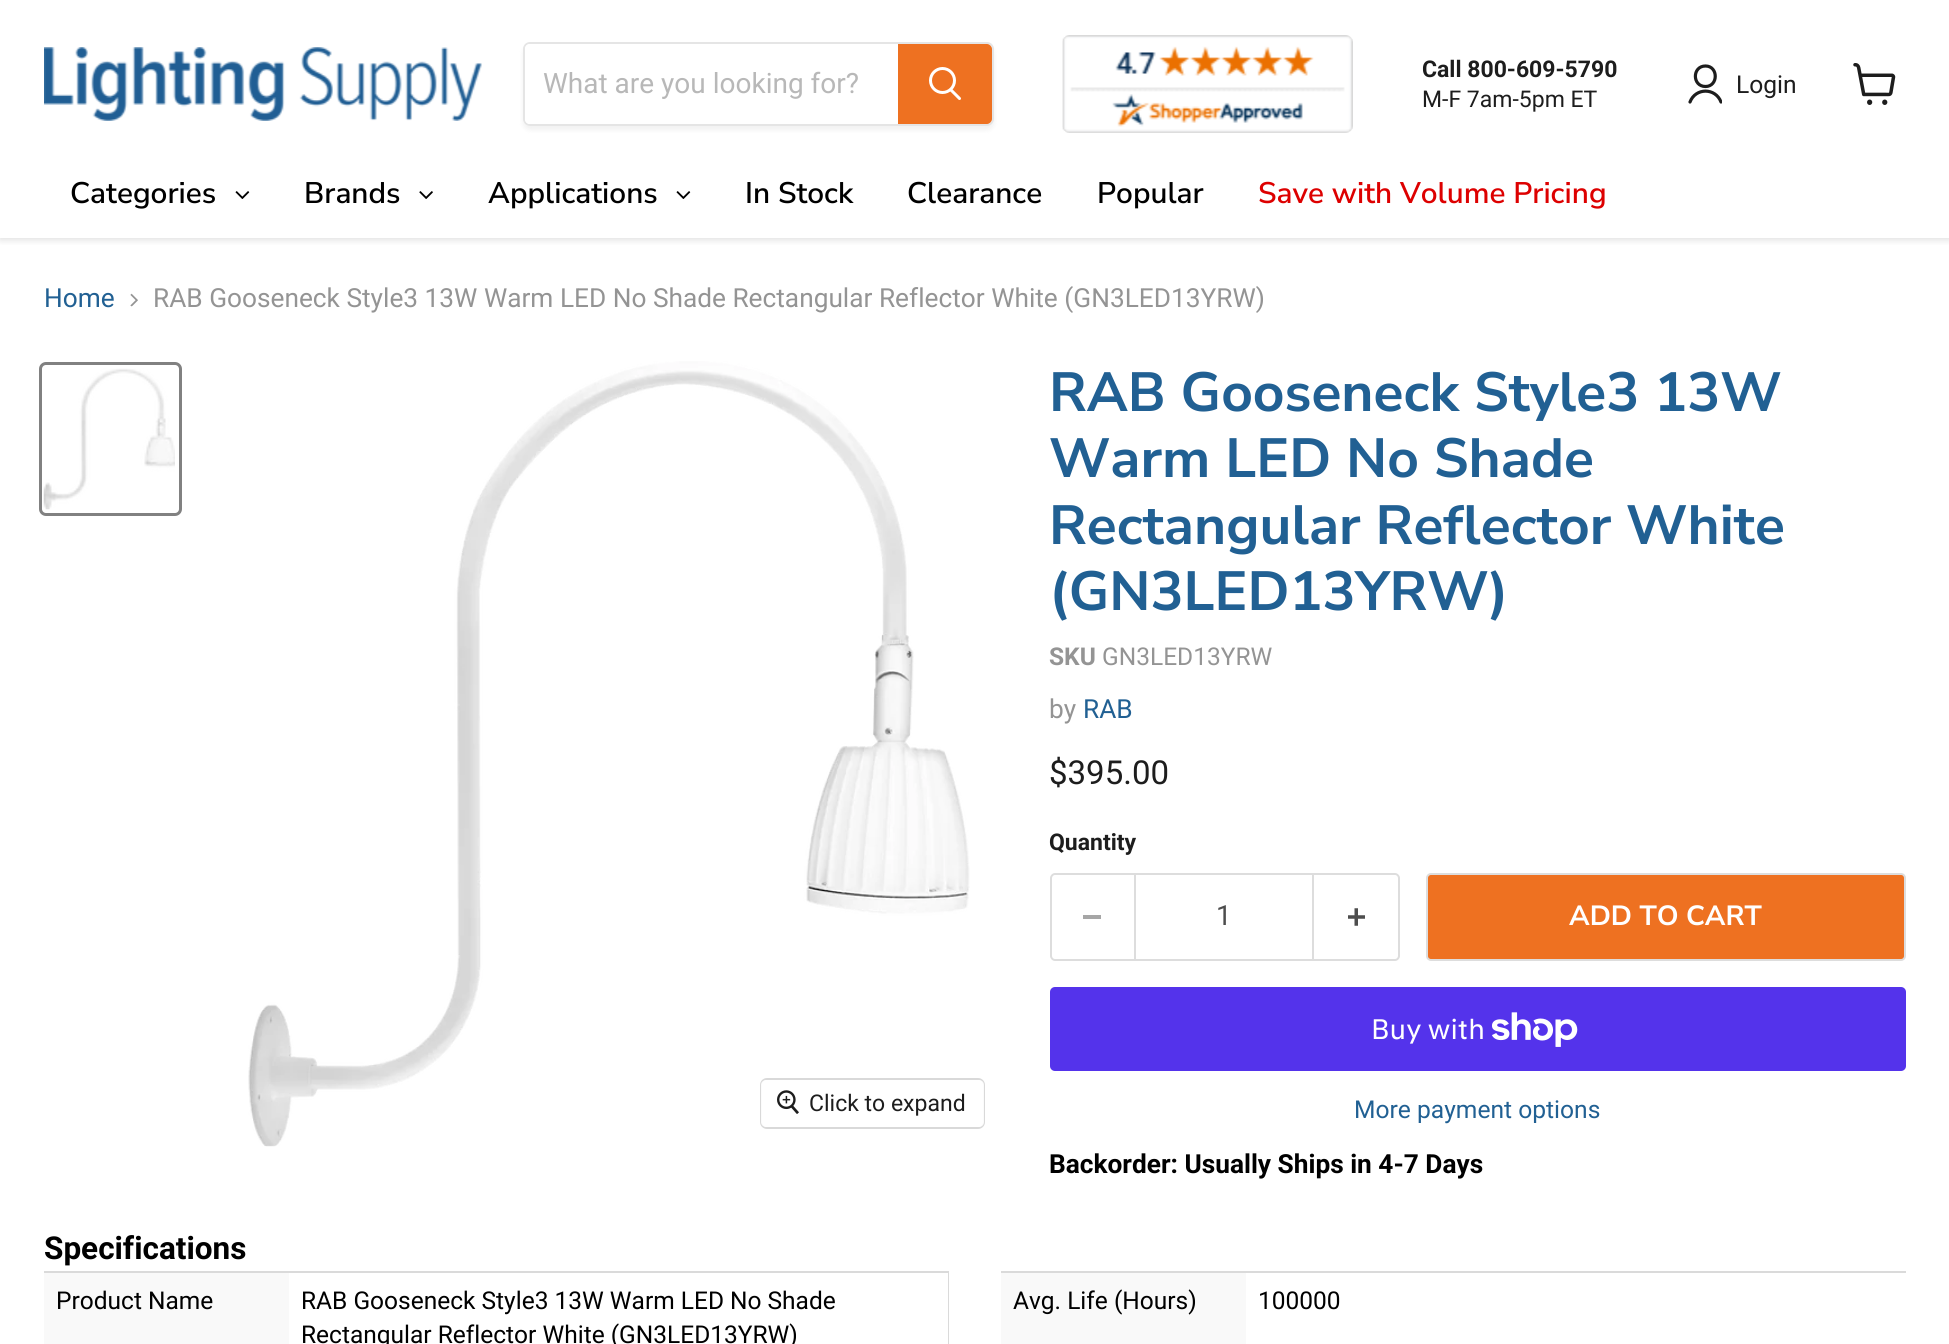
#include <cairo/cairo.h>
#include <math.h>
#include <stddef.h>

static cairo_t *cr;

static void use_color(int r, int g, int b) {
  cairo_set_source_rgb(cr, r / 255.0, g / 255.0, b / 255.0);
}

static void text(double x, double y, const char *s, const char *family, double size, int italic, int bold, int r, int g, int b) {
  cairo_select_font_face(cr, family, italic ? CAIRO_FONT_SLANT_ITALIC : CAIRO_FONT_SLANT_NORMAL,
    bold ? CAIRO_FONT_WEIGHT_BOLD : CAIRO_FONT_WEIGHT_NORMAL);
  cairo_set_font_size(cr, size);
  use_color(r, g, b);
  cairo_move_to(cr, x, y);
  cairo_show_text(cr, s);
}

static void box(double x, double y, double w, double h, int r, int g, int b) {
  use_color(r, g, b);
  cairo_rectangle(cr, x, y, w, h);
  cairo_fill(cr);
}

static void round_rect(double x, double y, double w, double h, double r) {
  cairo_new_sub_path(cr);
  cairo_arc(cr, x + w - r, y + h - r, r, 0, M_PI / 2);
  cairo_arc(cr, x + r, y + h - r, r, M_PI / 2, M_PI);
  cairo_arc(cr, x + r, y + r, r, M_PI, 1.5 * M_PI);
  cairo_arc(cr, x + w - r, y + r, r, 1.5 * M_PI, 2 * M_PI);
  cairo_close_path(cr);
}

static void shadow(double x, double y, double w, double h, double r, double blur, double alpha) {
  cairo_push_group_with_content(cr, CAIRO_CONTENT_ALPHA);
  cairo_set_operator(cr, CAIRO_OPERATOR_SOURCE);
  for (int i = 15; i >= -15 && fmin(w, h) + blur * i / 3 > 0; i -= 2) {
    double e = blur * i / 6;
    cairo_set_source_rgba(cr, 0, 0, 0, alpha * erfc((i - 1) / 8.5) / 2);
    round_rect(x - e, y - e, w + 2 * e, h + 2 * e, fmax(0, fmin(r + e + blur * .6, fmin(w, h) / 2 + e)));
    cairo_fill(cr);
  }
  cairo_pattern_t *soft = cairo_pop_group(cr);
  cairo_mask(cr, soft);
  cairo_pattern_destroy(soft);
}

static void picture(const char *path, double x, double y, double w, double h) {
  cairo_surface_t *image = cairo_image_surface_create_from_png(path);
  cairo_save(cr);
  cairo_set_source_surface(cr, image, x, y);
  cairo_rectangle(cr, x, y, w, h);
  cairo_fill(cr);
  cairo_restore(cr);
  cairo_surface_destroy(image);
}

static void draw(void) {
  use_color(255, 255, 255);
  cairo_paint(cr);
  cairo_save(cr);
  cairo_rectangle(cr, 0, 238, 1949, 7);
  cairo_clip(cr);
  use_color(128, 128, 128);
  shadow(0, 2, 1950, 238, 0, 3.5, 0.25);
  cairo_restore(cr);
  picture("img_01.png", 44, 47, 438, 74);
  cairo_save(cr);
  cairo_set_fill_rule(cr, CAIRO_FILL_RULE_EVEN_ODD);
  cairo_new_path(cr);
  cairo_move_to(cr, 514, 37);
  cairo_line_to(cr, 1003, 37);
  cairo_line_to(cr, 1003, 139);
  cairo_line_to(cr, 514, 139);
  cairo_close_path(cr);
  cairo_move_to(cr, 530, 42);
  cairo_line_to(cr, 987, 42);
  cairo_curve_to(cr, 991, 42, 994, 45, 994, 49);
  cairo_line_to(cr, 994, 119);
  cairo_curve_to(cr, 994, 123, 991, 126, 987, 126);
  cairo_line_to(cr, 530, 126);
  cairo_curve_to(cr, 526, 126, 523, 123, 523, 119);
  cairo_line_to(cr, 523, 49);
  cairo_curve_to(cr, 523, 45, 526, 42, 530, 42);
  cairo_close_path(cr);
  cairo_clip(cr);
  use_color(128, 128, 128);
  shadow(523, 46, 471, 84, 7, 2.5, 0.11);
  cairo_restore(cr);
  round_rect(524, 43, 469, 82, 6);
  cairo_set_source_rgba(cr, 0.502, 0.502, 0.502, 0.2);
  cairo_stroke(cr);
  use_color(255, 255, 255);
  cairo_new_path(cr);
  cairo_move_to(cr, 530, 44);
  cairo_line_to(cr, 898, 44);
  cairo_line_to(cr, 898, 124);
  cairo_line_to(cr, 530, 124);
  cairo_curve_to(cr, 527, 124, 525, 122, 525, 119);
  cairo_line_to(cr, 525, 49);
  cairo_curve_to(cr, 525, 46, 527, 44, 530, 44);
  cairo_close_path(cr);
  cairo_fill(cr);
  use_color(238, 113, 33);
  cairo_new_path(cr);
  cairo_move_to(cr, 899, 45);
  cairo_line_to(cr, 987, 45);
  cairo_curve_to(cr, 989, 45, 991, 47, 991, 49);
  cairo_line_to(cr, 991, 119);
  cairo_curve_to(cr, 991, 121, 989, 123, 987, 123);
  cairo_line_to(cr, 899, 123);
  cairo_close_path(cr);
  cairo_fill_preserve(cr);
  cairo_stroke(cr);
  cairo_new_path(cr);
  cairo_move_to(cr, 959.5, 98.5);
  cairo_line_to(cr, 951, 90);
  use_color(255, 255, 255);
  cairo_set_line_width(cr, 3);
  cairo_set_line_cap(cr, CAIRO_LINE_CAP_ROUND);
  cairo_stroke(cr);
  cairo_arc(cr, 942.5, 80.5, 12, 0, 2 * M_PI);
  cairo_set_line_cap(cr, CAIRO_LINE_CAP_BUTT);
  cairo_stroke(cr);
  picture("img_02.png", 1062, 35, 291, 98);
  cairo_new_path(cr);
  cairo_move_to(cr, 1705.5, 86.5);
  cairo_curve_to(cr, 1718.5, 86.5, 1718.5, 66, 1705.5, 66);
  cairo_curve_to(cr, 1692, 66, 1692, 86.5, 1705.5, 86.5);
  cairo_close_path(cr);
  use_color(29, 29, 29);
  cairo_set_line_width(cr, 3.2);
  cairo_set_line_cap(cr, CAIRO_LINE_CAP_ROUND);
  cairo_set_line_join(cr, CAIRO_LINE_JOIN_ROUND);
  cairo_stroke(cr);
  cairo_save(cr);
  cairo_rectangle(cr, 1687, 63, 35, 42);
  cairo_clip(cr);
  cairo_new_path(cr);
  cairo_move_to(cr, 1721, 102);
  cairo_curve_to(cr, 1715.5, 87.5, 1695.5, 87.5, 1690, 102);
  cairo_stroke(cr);
  cairo_restore(cr);
  picture("img_03.png", 1853, 63, 43, 42);
  picture("img_04.png", 235, 191, 15, 8);
  picture("img_05.png", 419, 191, 14, 8);
  picture("img_04.png", 676, 191, 15, 8);
  picture("img_06.png", 130, 293, 8, 14);
  round_rect(40.5, 363.5, 140, 151, 5.5);
  use_color(129, 129, 129);
  cairo_set_line_width(cr, 3);
  cairo_set_line_cap(cr, CAIRO_LINE_CAP_BUTT);
  cairo_set_line_join(cr, CAIRO_LINE_JOIN_MITER);
  cairo_stroke(cr);
  picture("img_07.png", 43, 368, 132, 142);
  picture("img_08.png", 248, 361, 722, 786);
  round_rect(761, 1079, 223, 49, 6);
  use_color(217, 217, 217);
  cairo_set_line_width(cr, 2);
  cairo_stroke(cr);
  cairo_set_source_rgba(cr, 1, 1, 1, 0.9);
  round_rect(761, 1080, 223, 47, 5);
  cairo_fill(cr);
  picture("img_09.png", 777, 1090, 22, 24);
  use_color(221, 221, 221);
  cairo_set_fill_rule(cr, CAIRO_FILL_RULE_EVEN_ODD);
  cairo_new_path(cr);
  cairo_move_to(cr, 1055, 873);
  cairo_line_to(cr, 1134, 873);
  cairo_line_to(cr, 1134, 961);
  cairo_line_to(cr, 1055, 961);
  cairo_curve_to(cr, 1052, 961, 1050, 958, 1050, 956);
  cairo_line_to(cr, 1050, 878);
  cairo_curve_to(cr, 1050, 876, 1052, 873, 1055, 873);
  cairo_close_path(cr);
  cairo_move_to(cr, 1055, 875);
  cairo_line_to(cr, 1134, 875);
  cairo_line_to(cr, 1134, 959);
  cairo_line_to(cr, 1055, 959);
  cairo_curve_to(cr, 1053, 959, 1052, 957, 1052, 956);
  cairo_line_to(cr, 1052, 878);
  cairo_curve_to(cr, 1052, 877, 1053, 875, 1055, 875);
  cairo_close_path(cr);
  cairo_fill(cr);
  box(1083, 915, 18, 4, 166, 166, 166);
  cairo_rectangle(cr, 1135, 874, 178, 86);
  use_color(221, 221, 221);
  cairo_stroke(cr);
  cairo_new_path(cr);
  cairo_move_to(cr, 1314, 873);
  cairo_line_to(cr, 1395, 873);
  cairo_curve_to(cr, 1398, 873, 1400, 876, 1400, 878);
  cairo_line_to(cr, 1400, 956);
  cairo_curve_to(cr, 1400, 958, 1398, 961, 1395, 961);
  cairo_line_to(cr, 1314, 961);
  cairo_close_path(cr);
  cairo_move_to(cr, 1314, 875);
  cairo_line_to(cr, 1395, 875);
  cairo_curve_to(cr, 1397, 875, 1398, 877, 1398, 878);
  cairo_line_to(cr, 1398, 956);
  cairo_curve_to(cr, 1398, 957, 1397, 959, 1395, 959);
  cairo_line_to(cr, 1314, 959);
  cairo_close_path(cr);
  cairo_fill(cr);
  picture("img_10.png", 1348, 908, 17, 18);
  use_color(238, 113, 33);
  round_rect(1427, 874, 478, 86, 4);
  cairo_fill_preserve(cr);
  use_color(221, 221, 221);
  cairo_stroke(cr);
  use_color(84, 51, 235);
  round_rect(1050, 987, 856, 84, 5);
  cairo_fill(cr);
  picture("img_11.png", 1492, 1012, 86, 35);
  box(44, 1273, 245, 71, 249, 249, 249);
  box(44, 1271, 245, 2, 218, 218, 218);
  cairo_set_fill_rule(cr, CAIRO_FILL_RULE_WINDING);
  cairo_new_path(cr);
  cairo_move_to(cr, 289, 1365);
  cairo_line_to(cr, 289, 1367);
  cairo_line_to(cr, 949, 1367);
  cairo_line_to(cr, 949, 1272);
  cairo_line_to(cr, 948, 1272);
  cairo_line_to(cr, 948, 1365);
  cairo_close_path(cr);
  cairo_fill(cr);
  box(289, 1271, 660, 2, 218, 218, 218);
  box(1001, 1273, 245, 71, 249, 249, 249);
  box(1001, 1271, 905, 2, 218, 218, 218);
  text(543, 93, "What are you looking for?", "Roboto", 28, 0, 0, 184, 184, 184);
  text(1422, 77, "Call 800-609-5790", "Roboto", 23, 0, 1, 29, 29, 29);
  text(1422, 107, "M-F 7am-5pm ET", "Roboto", 23, 0, 0, 29, 29, 29);
  text(1736, 93, "Login", "Roboto", 24.6, 0, 0, 29, 29, 29);
  text(70, 203, "Categories", "Nunito Sans SemiBold", 29.75, 0, 0, 0, 0, 0);
  text(304, 203, "Brands", "Nunito Sans SemiBold", 29.75, 0, 0, 0, 0, 0);
  text(488, 203, "Applications", "Nunito Sans SemiBold", 29.75, 0, 0, 0, 0, 0);
  text(745, 203, "In Stock", "Nunito Sans SemiBold", 29.75, 0, 0, 0, 0, 0);
  text(907, 203, "Clearance", "Nunito Sans SemiBold", 29.75, 0, 0, 0, 0, 0);
  text(1097, 203, "Popular", "Nunito Sans SemiBold", 29.75, 0, 0, 0, 0, 0);
  text(1258, 203, "Save with Volume Pricing", "Nunito Sans SemiBold", 29.75, 0, 0, 221, 0, 0);
  text(44, 307, "Home", "Roboto", 26.25, 0, 0, 33, 96, 147);
  text(153, 307, "RAB Gooseneck Style3 13W Warm LED No Shade Rectangular Reflector White (GN3LED13YRW)", "Roboto", 26.25, 0, 0, 148, 148, 148);
  text(809, 1111, "Click to expand", "Roboto", 23, 0, 0, 29, 29, 29);
  text(1049, 411, "RAB Gooseneck Style3 13W", "Nunito Sans", 55.1, 0, 1, 33, 96, 147);
  text(1049, 477, "Warm LED No Shade", "Nunito Sans", 55.1, 0, 1, 33, 96, 147);
  text(1049, 544, "Rectangular Reflector White", "Nunito Sans", 55.1, 0, 1, 33, 96, 147);
  text(1049, 610, "(GN3LED13YRW)", "Nunito Sans", 55.1, 0, 1, 33, 96, 147);
  text(1049, 665, "SKU", "Roboto", 24.5, 0, 1, 148, 148, 148);
  text(1102, 665, "GN3LED13YRW", "Roboto", 24.5, 0, 0, 148, 148, 148);
  text(1049, 718, "by", "Roboto", 26.25, 0, 0, 148, 148, 148);
  text(1083, 718, "RAB", "Roboto", 26.25, 0, 0, 33, 96, 147);
  text(1049, 784, "$395.00", "Roboto", 33, 0, 0, 29, 29, 29);
  text(1049, 850, "Quantity", "Roboto", 23, 0, 1, 29, 29, 29);
  text(1216, 925, "1", "Roboto", 27.75, 0, 0, 77, 77, 77);
  text(1569, 925, "ADD TO CART", "Nunito Sans", 27.75, 0, 1, 255, 255, 255);
  text(1371, 1039, "Buy with", "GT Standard", 28, 0, 0, 255, 255, 255);
  text(1354, 1118, "More payment options", "Roboto", 24.6, 0, 0, 33, 96, 147);
  text(1049, 1173, "Backorder: Usually Ships in 4-7 Days", "Roboto", 26.25, 0, 1, 0, 0, 0);
  text(44, 1259, "Specifications", "Roboto", 31.5, 0, 1, 0, 0, 0);
  text(56, 1309, "Product Name", "Roboto", 24.5, 0, 0, 0, 0, 0);
  text(301, 1309, "RAB Gooseneck Style3 13W Warm LED No Shade", "Roboto", 24.5, 0, 0, 0, 0, 0);
  text(301, 1343, "Rectangular Reflector White (GN3LED13YRW)", "Roboto", 24.5, 0, 0, 0, 0, 0);
  text(1013, 1309, "Avg. Life (Hours)", "Roboto", 24.5, 0, 0, 0, 0, 0);
  text(1258, 1309, "100000", "Roboto", 24.5, 0, 0, 0, 0, 0);
}

int main(void) {
  cairo_surface_t *surface = cairo_image_surface_create(CAIRO_FORMAT_RGB24, 1949, 1344);
  cr = cairo_create(surface);
  cairo_font_options_t *options = cairo_font_options_create();
  cairo_font_options_set_hint_metrics(options, CAIRO_HINT_METRICS_OFF);
  cairo_font_options_set_hint_style(options, CAIRO_HINT_STYLE_NONE);
  cairo_set_font_options(cr, options);
  cairo_set_miter_limit(cr, 4);
  draw();
  cairo_surface_write_to_png(surface, "out.png");
  cairo_font_options_destroy(options);
  cairo_destroy(cr);
  cairo_surface_destroy(surface);
  return 0;
}
